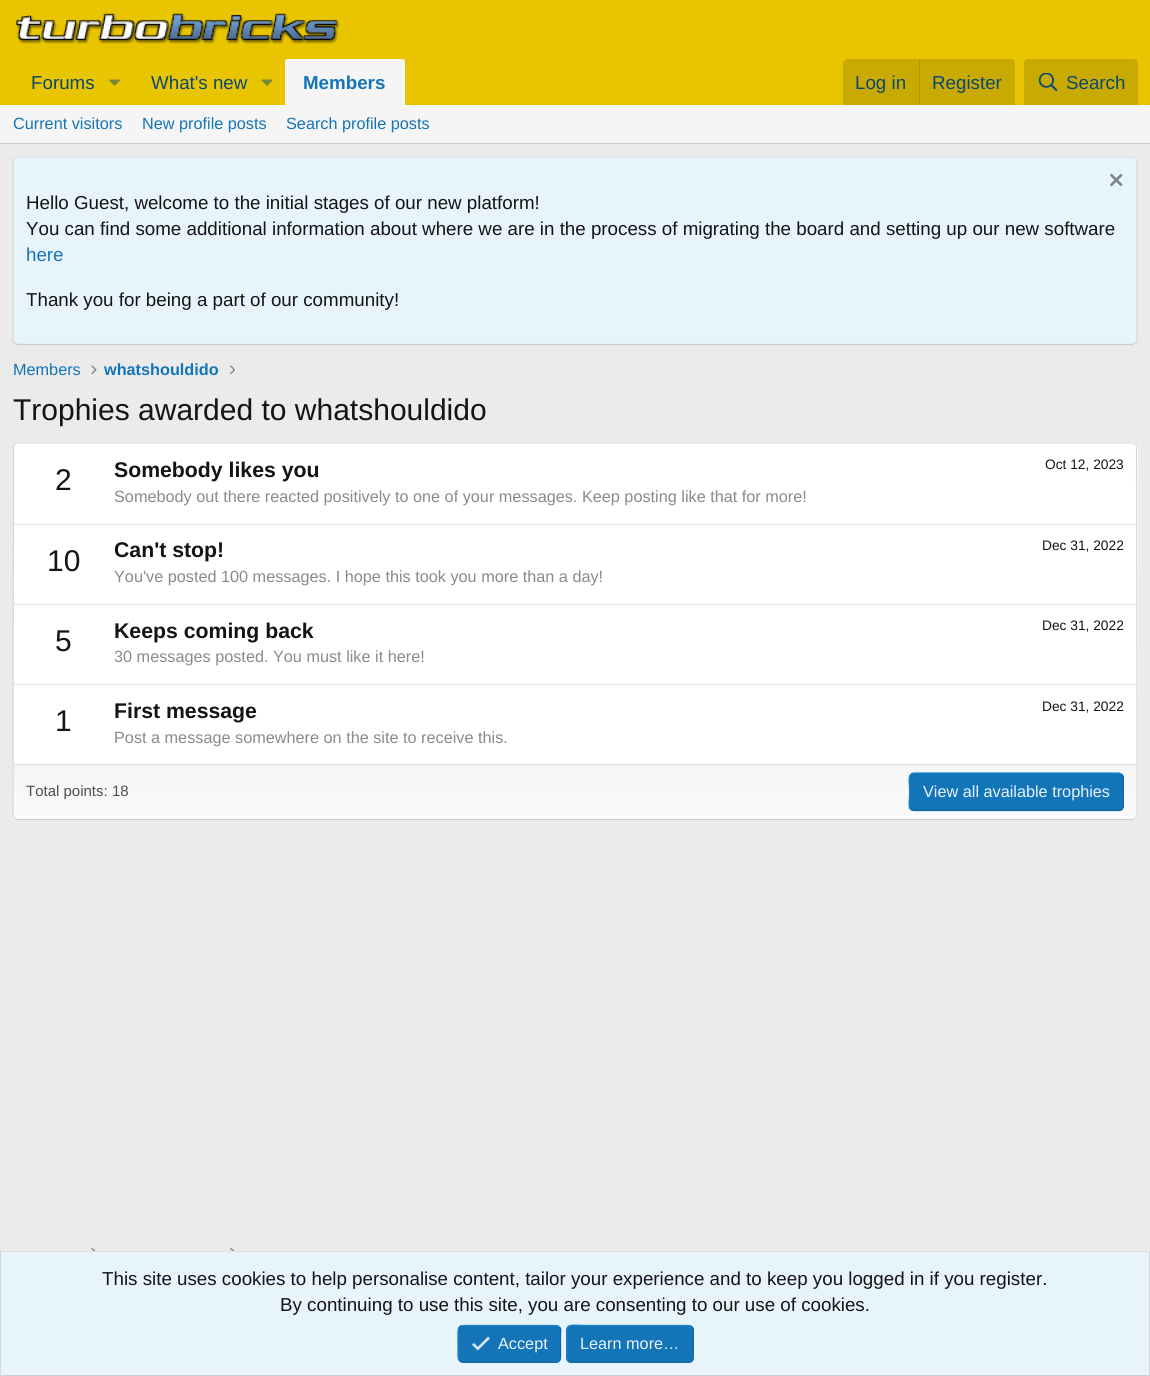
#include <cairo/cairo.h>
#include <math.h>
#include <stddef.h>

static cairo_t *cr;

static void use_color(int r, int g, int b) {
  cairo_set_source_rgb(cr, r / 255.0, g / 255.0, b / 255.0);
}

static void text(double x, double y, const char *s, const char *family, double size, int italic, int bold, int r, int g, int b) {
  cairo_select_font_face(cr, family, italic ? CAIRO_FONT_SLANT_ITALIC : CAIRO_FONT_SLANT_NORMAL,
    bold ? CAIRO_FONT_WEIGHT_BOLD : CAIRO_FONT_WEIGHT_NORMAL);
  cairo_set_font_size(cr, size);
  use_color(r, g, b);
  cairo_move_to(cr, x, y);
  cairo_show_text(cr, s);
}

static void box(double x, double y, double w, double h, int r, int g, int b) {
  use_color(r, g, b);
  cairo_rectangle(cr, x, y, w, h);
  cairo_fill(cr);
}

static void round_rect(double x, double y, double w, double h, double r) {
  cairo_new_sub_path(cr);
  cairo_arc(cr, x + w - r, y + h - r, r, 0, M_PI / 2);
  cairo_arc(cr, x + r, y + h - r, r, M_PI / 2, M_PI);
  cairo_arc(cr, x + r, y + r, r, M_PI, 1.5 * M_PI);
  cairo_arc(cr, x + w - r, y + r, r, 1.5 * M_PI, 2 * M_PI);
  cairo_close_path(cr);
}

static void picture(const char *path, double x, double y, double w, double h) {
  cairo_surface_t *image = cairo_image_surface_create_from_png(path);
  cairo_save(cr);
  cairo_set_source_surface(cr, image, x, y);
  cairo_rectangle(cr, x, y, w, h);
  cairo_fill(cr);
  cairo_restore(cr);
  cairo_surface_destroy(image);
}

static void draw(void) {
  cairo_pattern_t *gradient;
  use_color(235, 235, 235);
  cairo_paint(cr);
  box(0, 0, 1150, 105, 232, 197, 0);
  picture("img_01.png", 16, 13, 324, 31);
  picture("img_02.png", 109, 79, 11, 7);
  picture("img_03.png", 261, 79, 12, 7);
  use_color(245, 245, 245);
  cairo_new_path(cr);
  cairo_move_to(cr, 287.5, 59);
  cairo_line_to(cr, 402.5, 59);
  cairo_curve_to(cr, 404, 59, 405, 60, 405, 61.5);
  cairo_line_to(cr, 405, 105);
  cairo_line_to(cr, 285, 105);
  cairo_line_to(cr, 285, 61.5);
  cairo_curve_to(cr, 285, 60, 286, 59, 287.5, 59);
  cairo_close_path(cr);
  cairo_fill(cr);
  use_color(200, 170, 3);
  cairo_new_path(cr);
  cairo_move_to(cr, 848, 59);
  cairo_line_to(cr, 1010, 59);
  cairo_curve_to(cr, 1013, 59, 1015, 61, 1015, 64);
  cairo_line_to(cr, 1015, 105);
  cairo_line_to(cr, 843, 105);
  cairo_line_to(cr, 843, 64);
  cairo_curve_to(cr, 843, 61, 845, 59, 848, 59);
  cairo_close_path(cr);
  cairo_fill(cr);
  box(919, 59, 1, 46, 173, 148, 6);
  use_color(200, 170, 3);
  cairo_new_path(cr);
  cairo_move_to(cr, 1029, 59);
  cairo_line_to(cr, 1133, 59);
  cairo_curve_to(cr, 1136, 59, 1138, 61, 1138, 64);
  cairo_line_to(cr, 1138, 105);
  cairo_line_to(cr, 1024, 105);
  cairo_line_to(cr, 1024, 64);
  cairo_curve_to(cr, 1024, 61, 1026, 59, 1029, 59);
  cairo_close_path(cr);
  cairo_fill(cr);
  picture("img_04.png", 1039, 73, 19, 18);
  box(0, 105, 1150, 38, 245, 245, 245);
  box(0, 143, 1150, 1, 204, 204, 204);
  use_color(232, 244, 252);
  round_rect(13, 156, 1125, 189, 5);
  cairo_fill(cr);
  cairo_new_path(cr);
  cairo_move_to(cr, 14.5, 158);
  cairo_line_to(cr, 17.5, 157);
  cairo_line_to(cr, 1132.5, 157);
  cairo_line_to(cr, 1135.5, 158);
  use_color(224, 224, 224);
  cairo_set_line_width(cr, 1.2);
  cairo_stroke(cr);
  cairo_new_path(cr);
  cairo_move_to(cr, 1135.5, 158);
  cairo_curve_to(cr, 1136.5, 159, 1137, 160, 1137, 161);
  cairo_line_to(cr, 1137, 340);
  cairo_curve_to(cr, 1137, 341, 1136.5, 342.5, 1135.5, 343);
  use_color(214, 214, 214);
  cairo_stroke(cr);
  cairo_new_path(cr);
  cairo_move_to(cr, 1135.5, 343);
  cairo_line_to(cr, 1132.5, 344.5);
  cairo_line_to(cr, 17.5, 344.5);
  cairo_line_to(cr, 14.5, 343);
  use_color(204, 204, 204);
  cairo_stroke(cr);
  cairo_new_path(cr);
  cairo_move_to(cr, 14.5, 343);
  cairo_curve_to(cr, 13.5, 342.5, 13, 341, 13, 340);
  cairo_line_to(cr, 13, 161);
  cairo_curve_to(cr, 13, 160, 13.5, 159, 14.5, 158);
  use_color(214, 214, 214);
  cairo_stroke(cr);
  picture("img_05.png", 1110, 173, 13, 14);
  picture("img_06.png", 91, 365, 6, 10);
  picture("img_07.png", 230, 365, 5, 10);
  use_color(255, 255, 255);
  round_rect(13, 443, 1125, 377, 5);
  cairo_fill(cr);
  cairo_new_path(cr);
  cairo_move_to(cr, 14.5, 444.5);
  cairo_line_to(cr, 17.5, 443);
  cairo_line_to(cr, 1132.5, 443);
  cairo_line_to(cr, 1135.5, 444.5);
  use_color(224, 224, 224);
  cairo_stroke(cr);
  cairo_new_path(cr);
  cairo_move_to(cr, 1135.5, 444.5);
  cairo_line_to(cr, 1136.5, 446);
  cairo_line_to(cr, 1137, 754);
  cairo_line_to(cr, 1137, 815);
  cairo_line_to(cr, 1135.5, 818);
  use_color(214, 214, 214);
  cairo_stroke(cr);
  cairo_new_path(cr);
  cairo_move_to(cr, 1135.5, 818);
  cairo_line_to(cr, 1132.5, 819.5);
  cairo_line_to(cr, 17.5, 819.5);
  cairo_line_to(cr, 14.5, 818);
  use_color(204, 204, 204);
  cairo_stroke(cr);
  cairo_new_path(cr);
  cairo_move_to(cr, 14.5, 818);
  cairo_line_to(cr, 13, 815);
  cairo_line_to(cr, 13.5, 446);
  cairo_line_to(cr, 14.5, 444.5);
  use_color(214, 214, 214);
  cairo_stroke(cr);
  box(14, 524, 1122, 1, 224, 224, 224);
  box(14, 604, 1122, 1, 224, 224, 224);
  box(14, 684, 1122, 1, 224, 224, 224);
  gradient = cairo_pattern_create_linear(575, 765, 575, 819);
  cairo_pattern_add_color_stop_rgba(gradient, 0, 0.961, 0.961, 0.961, 1);
  cairo_pattern_add_color_stop_rgba(gradient, 1, 0.98, 0.98, 0.98, 1);
  cairo_set_source(cr, gradient);
  cairo_pattern_destroy(gradient);
  cairo_new_path(cr);
  cairo_move_to(cr, 14, 765);
  cairo_line_to(cr, 1136, 765);
  cairo_line_to(cr, 1136, 815);
  cairo_curve_to(cr, 1136, 817, 1134, 819, 1132, 819);
  cairo_line_to(cr, 18, 819);
  cairo_curve_to(cr, 16, 819, 14, 817, 14, 815);
  cairo_close_path(cr);
  cairo_fill(cr);
  box(14, 764, 1122, 1, 224, 224, 224);
  use_color(20, 116, 184);
  round_rect(909, 773, 215, 38, 5);
  cairo_fill(cr);
  cairo_new_path(cr);
  cairo_move_to(cr, 1122, 774.5);
  cairo_curve_to(cr, 1124.5, 777, 1123, 784, 1123, 787);
  cairo_line_to(cr, 1123, 796.5);
  cairo_curve_to(cr, 1123, 800, 1125.5, 810.5, 1119, 810.5);
  cairo_line_to(cr, 914, 810.5);
  cairo_line_to(cr, 910.5, 809.5);
  use_color(18, 101, 161);
  cairo_stroke(cr);
  cairo_new_path(cr);
  cairo_move_to(cr, 910.5, 809.5);
  cairo_curve_to(cr, 908, 806.5, 909.5, 800, 909.5, 796.5);
  cairo_line_to(cr, 909.5, 787);
  cairo_curve_to(cr, 909.5, 784, 907, 773, 914, 773);
  cairo_line_to(cr, 1119, 773);
  cairo_line_to(cr, 1122, 774.5);
  use_color(23, 130, 207);
  cairo_stroke(cr);
  picture("img_08.png", 91, 1247, 5, 4);
  picture("img_09.png", 230, 1247, 5, 4);
  box(1, 1252, 1148, 123, 232, 244, 252);
  box(0, 1251, 1150, 1, 224, 224, 224);
  box(1149, 1251, 1, 125, 214, 214, 214);
  box(0, 1375, 1150, 1, 204, 204, 204);
  box(0, 1251, 1, 125, 214, 214, 214);
  use_color(20, 116, 184);
  round_rect(458, 1325, 103, 38, 5);
  cairo_fill(cr);
  cairo_new_path(cr);
  cairo_move_to(cr, 559.5, 1327);
  cairo_curve_to(cr, 561.5, 1329, 560.5, 1332, 560.5, 1334.5);
  cairo_line_to(cr, 560.5, 1344);
  cairo_curve_to(cr, 560.5, 1365, 563.5, 1362, 540.5, 1362);
  cairo_line_to(cr, 462.5, 1362);
  cairo_line_to(cr, 459.5, 1360.5);
  use_color(18, 101, 161);
  cairo_stroke(cr);
  cairo_new_path(cr);
  cairo_move_to(cr, 459.5, 1360.5);
  cairo_curve_to(cr, 457.5, 1358.5, 458, 1355.5, 458, 1353);
  cairo_line_to(cr, 458, 1344);
  cairo_curve_to(cr, 458, 1322.5, 455.5, 1325.5, 478, 1325.5);
  cairo_line_to(cr, 556, 1325.5);
  cairo_line_to(cr, 559.5, 1327);
  use_color(23, 130, 207);
  cairo_stroke(cr);
  picture("img_10.png", 472, 1336, 19, 15);
  use_color(20, 116, 184);
  round_rect(566, 1325, 128, 38, 5);
  cairo_fill(cr);
  cairo_new_path(cr);
  cairo_move_to(cr, 692, 1327);
  cairo_curve_to(cr, 694, 1329, 693, 1332, 693, 1334.5);
  cairo_line_to(cr, 693, 1344);
  cairo_curve_to(cr, 693, 1366.5, 695.5, 1362, 669, 1362);
  cairo_line_to(cr, 571, 1362);
  cairo_line_to(cr, 568, 1360.5);
  use_color(18, 101, 161);
  cairo_stroke(cr);
  cairo_new_path(cr);
  cairo_move_to(cr, 568, 1360.5);
  cairo_curve_to(cr, 566, 1358.5, 567, 1355.5, 567, 1353);
  cairo_line_to(cr, 567, 1344);
  cairo_curve_to(cr, 567, 1321, 564.5, 1325.5, 591, 1325.5);
  cairo_line_to(cr, 689, 1325.5);
  cairo_line_to(cr, 692, 1327);
  use_color(23, 130, 207);
  cairo_stroke(cr);
  text(31, 89, "Forums", "Liberation Sans", 18.75, 0, 0, 11, 71, 111);
  text(151, 89, "What's new", "Liberation Sans", 18.75, 0, 0, 11, 71, 111);
  text(303, 89, "Members", "Liberation Sans", 18.75, 0, 1, 20, 116, 184);
  text(855, 89, "Log in", "Liberation Sans", 18.75, 0, 0, 11, 71, 111);
  text(932, 89, "Register", "Liberation Sans", 18.75, 0, 0, 11, 71, 111);
  text(1066, 89, "Search", "Liberation Sans", 18.75, 0, 0, 11, 71, 111);
  text(13, 129, "Current visitors", "Liberation Sans", 16.25, 0, 0, 20, 116, 184);
  text(142, 129, "New profile posts", "Liberation Sans", 16.25, 0, 0, 20, 116, 184);
  text(286, 129, "Search profile posts", "Liberation Sans", 16.25, 0, 0, 20, 116, 184);
  text(26, 209, "Hello Guest, welcome to the initial stages of our new platform!", "Liberation Sans", 18.75, 0, 0, 20, 20, 20);
  text(26, 235, "You can find some additional information about where we are in the process of migrating the board and setting up our new software", "Liberation Sans", 18.75, 0, 0, 20, 20, 20);
  text(26, 261, "here", "Liberation Sans", 18.75, 0, 0, 20, 116, 184);
  text(26, 306, "Thank you for being a part of our community!", "Liberation Sans", 18.75, 0, 0, 20, 20, 20);
  text(13, 375, "Members", "Liberation Sans", 16.25, 0, 0, 20, 116, 184);
  text(104, 375, "whatshouldido", "Liberation Sans", 16.25, 0, 1, 20, 116, 184);
  text(13, 420, "Trophies awarded to whatshouldido", "Liberation Sans", 30, 0, 0, 20, 20, 20);
  text(55, 490, "2", "Liberation Sans", 30, 0, 0, 20, 20, 20);
  text(114, 477, "Somebody likes you", "Liberation Sans", 21.25, 0, 1, 20, 20, 20);
  text(1045, 469, "Oct 12, 2023", "Liberation Sans", 13.75, 0, 0, 20, 20, 20);
  text(114, 502, "Somebody out there reacted positively to one of your messages. Keep posting like that for more!", "Liberation Sans", 16.25, 0, 0, 138, 138, 138);
  text(47, 571, "10", "Liberation Sans", 30, 0, 0, 20, 20, 20);
  text(114, 557, "Can't stop!", "Liberation Sans", 21.25, 0, 1, 20, 20, 20);
  text(1042, 550, "Dec 31, 2022", "Liberation Sans", 13.75, 0, 0, 20, 20, 20);
  text(114, 582, "You've posted 100 messages. I hope this took you more than a day!", "Liberation Sans", 16.25, 0, 0, 138, 138, 138);
  text(55, 651, "5", "Liberation Sans", 30, 0, 0, 20, 20, 20);
  text(114, 638, "Keeps coming back", "Liberation Sans", 21.25, 0, 1, 20, 20, 20);
  text(1042, 630, "Dec 31, 2022", "Liberation Sans", 13.75, 0, 0, 20, 20, 20);
  text(114, 662, "30 messages posted. You must like it here!", "Liberation Sans", 16.25, 0, 0, 138, 138, 138);
  text(55, 731, "1", "Liberation Sans", 30, 0, 0, 20, 20, 20);
  text(114, 718, "First message", "Liberation Sans", 21.25, 0, 1, 20, 20, 20);
  text(1042, 711, "Dec 31, 2022", "Liberation Sans", 13.75, 0, 0, 20, 20, 20);
  text(114, 743, "Post a message somewhere on the site to receive this.", "Liberation Sans", 16.25, 0, 0, 138, 138, 138);
  text(26, 796, "Total points: 18", "Liberation Sans", 15, 0, 0, 79, 79, 79);
  text(923, 797, "View all available trophies", "Liberation Sans", 16.25, 0, 0, 232, 244, 252);
  text(102, 1285, "This site uses cookies to help personalise content, tailor your experience and to keep you logged in if you register.", "Liberation Sans", 18.75, 0, 0, 20, 20, 20);
  text(280, 1311, "By continuing to use this site, you are consenting to our use of cookies.", "Liberation Sans", 18.75, 0, 0, 20, 20, 20);
  text(498, 1349, "Accept", "Liberation Sans", 16.25, 0, 0, 232, 244, 252);
  text(580, 1349, "Learn more…", "Liberation Sans", 16.25, 0, 0, 232, 244, 252);
}

int main(void) {
  cairo_surface_t *surface = cairo_image_surface_create(CAIRO_FORMAT_RGB24, 1150, 1376);
  cr = cairo_create(surface);
  cairo_font_options_t *options = cairo_font_options_create();
  cairo_font_options_set_hint_metrics(options, CAIRO_HINT_METRICS_OFF);
  cairo_font_options_set_hint_style(options, CAIRO_HINT_STYLE_NONE);
  cairo_set_font_options(cr, options);
  cairo_set_miter_limit(cr, 4);
  draw();
  cairo_surface_write_to_png(surface, "out.png");
  cairo_font_options_destroy(options);
  cairo_destroy(cr);
  cairo_surface_destroy(surface);
  return 0;
}
